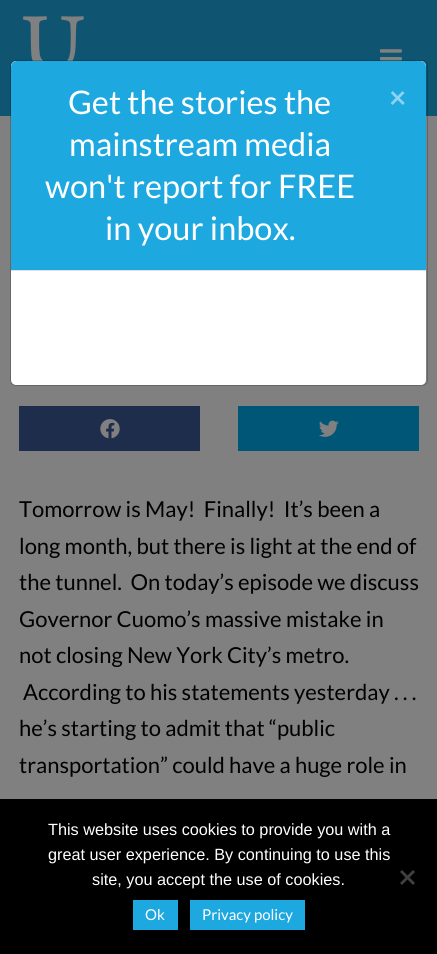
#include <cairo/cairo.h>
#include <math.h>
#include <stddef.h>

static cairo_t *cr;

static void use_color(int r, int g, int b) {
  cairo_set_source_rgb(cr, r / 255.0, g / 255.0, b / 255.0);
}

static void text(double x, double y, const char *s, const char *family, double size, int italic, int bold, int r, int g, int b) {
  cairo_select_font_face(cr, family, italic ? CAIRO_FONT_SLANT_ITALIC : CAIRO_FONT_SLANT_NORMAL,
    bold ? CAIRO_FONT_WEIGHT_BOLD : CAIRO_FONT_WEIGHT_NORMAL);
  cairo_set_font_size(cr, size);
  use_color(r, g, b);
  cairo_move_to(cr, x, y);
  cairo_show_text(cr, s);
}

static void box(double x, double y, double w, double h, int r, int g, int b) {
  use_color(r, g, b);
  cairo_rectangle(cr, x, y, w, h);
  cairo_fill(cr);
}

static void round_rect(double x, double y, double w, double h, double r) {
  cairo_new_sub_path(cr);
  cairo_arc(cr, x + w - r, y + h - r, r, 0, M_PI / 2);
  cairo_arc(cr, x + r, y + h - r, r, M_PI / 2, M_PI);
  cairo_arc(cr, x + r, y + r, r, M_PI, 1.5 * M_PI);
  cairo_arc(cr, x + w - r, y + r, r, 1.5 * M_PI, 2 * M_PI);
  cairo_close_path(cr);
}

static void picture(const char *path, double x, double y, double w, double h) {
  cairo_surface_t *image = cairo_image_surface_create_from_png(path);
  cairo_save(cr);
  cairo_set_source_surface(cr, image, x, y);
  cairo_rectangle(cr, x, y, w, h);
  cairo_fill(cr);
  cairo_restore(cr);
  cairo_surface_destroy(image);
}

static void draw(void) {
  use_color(128, 128, 128);
  cairo_paint(cr);
  box(0, 0, 437, 116, 15, 84, 112);
  picture("img_01.png", 23, 16, 61, 45);
  picture("img_02.png", 380, 49, 22, 12);
  use_color(255, 255, 255);
  round_rect(11, 61, 415, 324, 5);
  cairo_fill(cr);
  round_rect(10.5, 60.5, 417, 325, 5.5);
  cairo_set_source_rgba(cr, 0, 0, 0, 0.2);
  cairo_set_line_width(cr, 1);
  cairo_stroke(cr);
  use_color(29, 168, 224);
  cairo_new_path(cr);
  cairo_move_to(cr, 17, 61);
  cairo_line_to(cr, 420, 61);
  cairo_curve_to(cr, 423.5, 61, 426, 63.5, 426, 67);
  cairo_line_to(cr, 426, 271);
  cairo_line_to(cr, 11, 271);
  cairo_line_to(cr, 11, 67);
  cairo_curve_to(cr, 11, 63.5, 13.5, 61, 17, 61);
  cairo_close_path(cr);
  cairo_fill(cr);
  box(11, 270, 415, 1, 222, 226, 230);
  box(19, 406, 181, 45, 30, 45, 76);
  picture("img_03.png", 100, 419, 20, 20);
  box(238, 406, 181, 45, 0, 86, 119);
  picture("img_04.png", 319, 420, 20, 17);
  box(0, 799, 437, 155, 0, 0, 0);
  use_color(64, 64, 64);
  cairo_new_path(cr);
  cairo_move_to(cr, 413, 870);
  cairo_line_to(cr, 415, 872);
  cairo_line_to(cr, 402, 885);
  cairo_line_to(cr, 400, 883);
  cairo_close_path(cr);
  cairo_fill(cr);
  cairo_new_path(cr);
  cairo_move_to(cr, 400, 872);
  cairo_line_to(cr, 402, 870);
  cairo_line_to(cr, 415, 883);
  cairo_line_to(cr, 413, 885);
  cairo_close_path(cr);
  cairo_fill(cr);
  box(133, 900, 45, 30, 29, 168, 224);
  box(190, 900, 115, 30, 29, 168, 224);
  text(68, 114, "Get the stories the", "Lato", 32.5, 0, 0, 255, 255, 255);
  text(69, 156, "mainstream media", "Lato", 32.5, 0, 0, 255, 255, 255);
  text(45, 198, "won't report for FREE", "Lato", 32.5, 0, 0, 255, 255, 255);
  text(105, 240, "in your inbox.", "Lato", 32.5, 0, 0, 255, 255, 255);
  text(389, 108, "×", "Lato", 30, 0, 1, 142, 212, 240);
  text(19, 517, "Tomorrow is May!  Finally!  It’s been a", "Lato", 22, 0, 0, 0, 0, 0);
  text(19, 554, "long month, but there is light at the end of", "Lato", 22, 0, 0, 0, 0, 0);
  text(19, 590, "the tunnel.  On today’s episode we discuss", "Lato", 22, 0, 0, 0, 0, 0);
  text(19, 627, "Governor Cuomo’s massive mistake in", "Lato", 22, 0, 0, 0, 0, 0);
  text(19, 663, "not closing New York City’s metro.", "Lato", 22, 0, 0, 0, 0, 0);
  text(23, 700, "According to his statements yesterday . . .", "Lato", 22, 0, 0, 0, 0, 0);
  text(19, 736, "he’s starting to admit that “public", "Lato", 22, 0, 0, 0, 0, 0);
  text(19, 773, "transportation” could have a huge role in", "Lato", 22, 0, 0, 0, 0, 0);
  text(48, 835, "This website uses cookies to provide you with a", "Liberation Sans", 16.25, 0, 0, 255, 255, 255);
  text(48, 860, "great user experience. By continuing to use this", "Liberation Sans", 16.25, 0, 0, 255, 255, 255);
  text(92, 885, "site, you accept the use of cookies.", "Liberation Sans", 16.25, 0, 0, 255, 255, 255);
  text(145, 920, "Ok", "Lato", 15, 0, 0, 255, 255, 255);
  text(202, 920, "Privacy policy", "Lato", 15, 0, 0, 255, 255, 255);
}

int main(void) {
  cairo_surface_t *surface = cairo_image_surface_create(CAIRO_FORMAT_RGB24, 437, 954);
  cr = cairo_create(surface);
  cairo_font_options_t *options = cairo_font_options_create();
  cairo_font_options_set_hint_metrics(options, CAIRO_HINT_METRICS_OFF);
  cairo_font_options_set_hint_style(options, CAIRO_HINT_STYLE_NONE);
  cairo_set_font_options(cr, options);
  cairo_set_miter_limit(cr, 4);
  draw();
  cairo_surface_write_to_png(surface, "out.png");
  cairo_font_options_destroy(options);
  cairo_destroy(cr);
  cairo_surface_destroy(surface);
  return 0;
}
